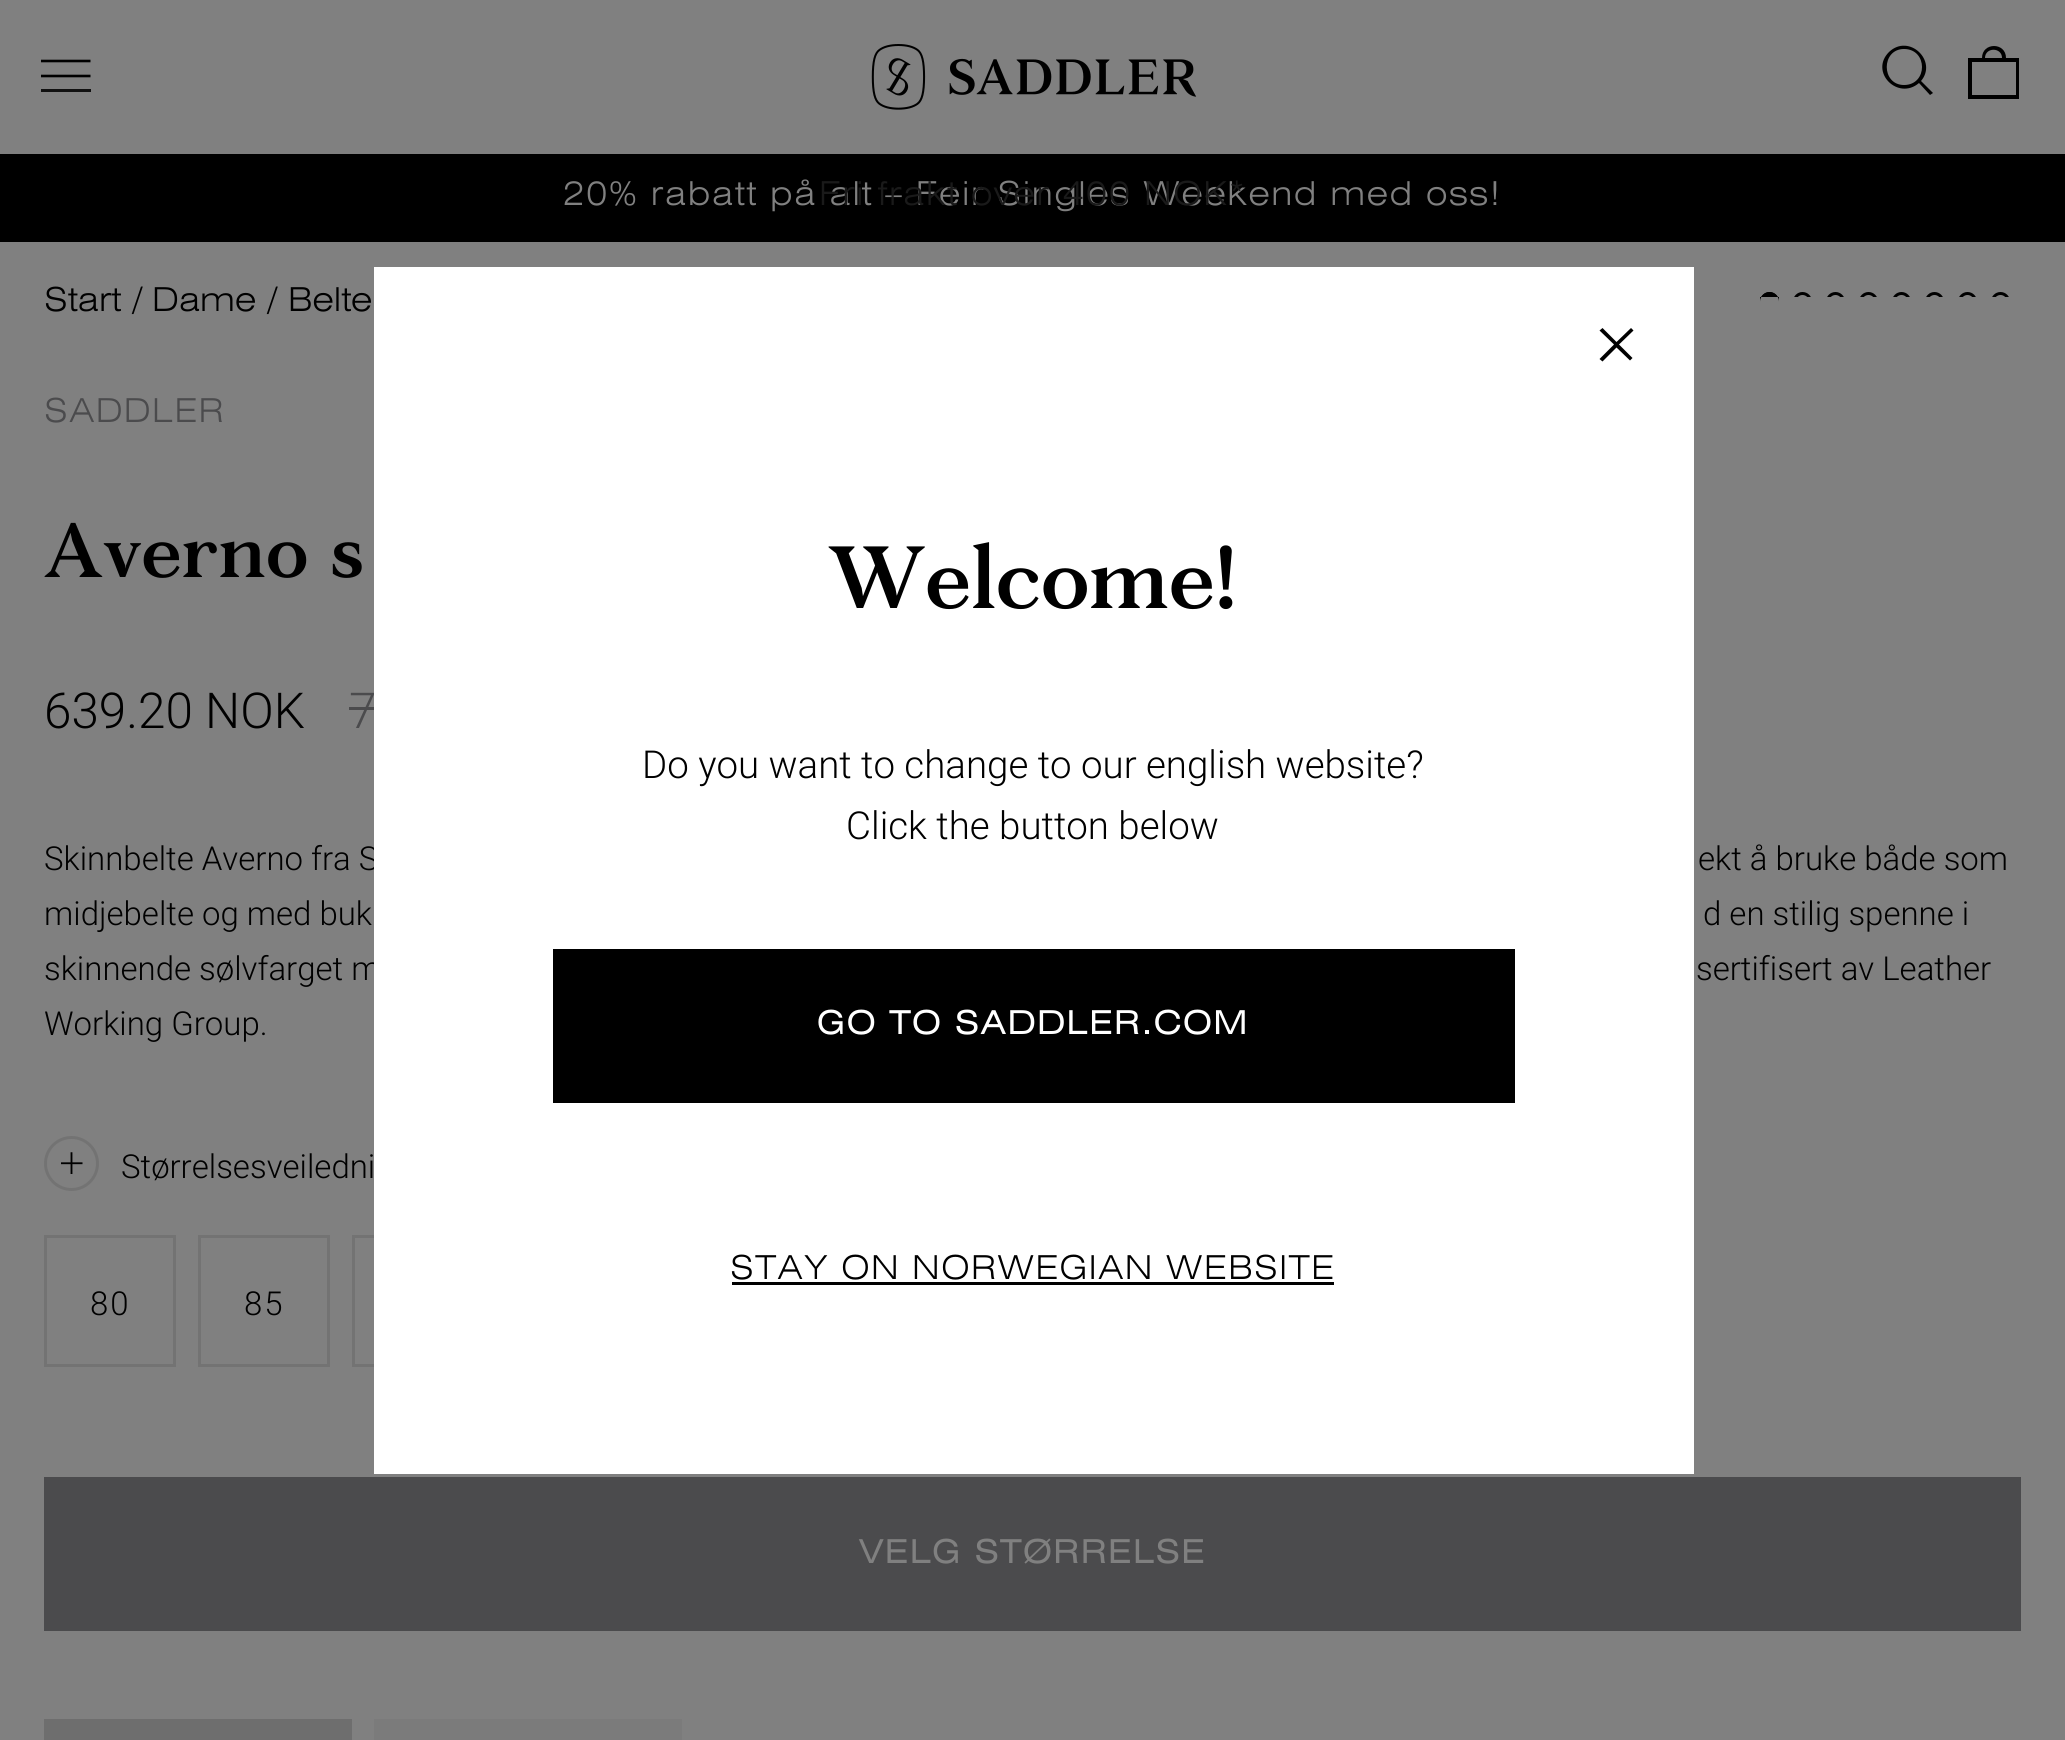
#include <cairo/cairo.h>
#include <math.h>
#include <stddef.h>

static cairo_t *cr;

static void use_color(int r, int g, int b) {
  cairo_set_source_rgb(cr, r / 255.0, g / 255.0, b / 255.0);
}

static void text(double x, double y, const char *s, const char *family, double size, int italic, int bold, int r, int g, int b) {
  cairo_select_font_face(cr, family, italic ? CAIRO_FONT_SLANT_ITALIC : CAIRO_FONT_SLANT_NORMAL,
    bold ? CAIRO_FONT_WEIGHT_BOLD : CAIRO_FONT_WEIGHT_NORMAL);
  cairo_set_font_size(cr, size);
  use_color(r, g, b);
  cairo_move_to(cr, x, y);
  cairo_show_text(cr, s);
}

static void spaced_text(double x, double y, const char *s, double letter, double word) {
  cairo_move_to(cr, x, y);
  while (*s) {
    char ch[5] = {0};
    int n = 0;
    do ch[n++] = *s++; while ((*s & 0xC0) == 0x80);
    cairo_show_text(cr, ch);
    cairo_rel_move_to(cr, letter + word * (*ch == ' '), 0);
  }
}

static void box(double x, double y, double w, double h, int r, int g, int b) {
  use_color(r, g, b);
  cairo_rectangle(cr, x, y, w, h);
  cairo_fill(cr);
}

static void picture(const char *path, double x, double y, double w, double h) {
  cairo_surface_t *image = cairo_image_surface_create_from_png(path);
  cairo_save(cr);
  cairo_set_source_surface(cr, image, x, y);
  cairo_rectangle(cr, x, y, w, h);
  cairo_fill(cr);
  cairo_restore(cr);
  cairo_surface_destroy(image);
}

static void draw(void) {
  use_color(128, 128, 128);
  cairo_paint(cr);
  box(41, 89, 50, 3, 17, 17, 17);
  cairo_new_path(cr);
  cairo_move_to(cr, 41, 76);
  cairo_line_to(cr, 90.5, 76);
  cairo_move_to(cr, 41, 61);
  cairo_line_to(cr, 90.5, 61);
  use_color(0, 0, 0);
  cairo_set_line_width(cr, 2.6);
  cairo_stroke(cr);
  picture("img_01.png", 871, 44, 326, 66);
  cairo_new_path(cr);
  cairo_move_to(cr, 1921, 81);
  cairo_line_to(cr, 1933, 93);
  cairo_line_to(cr, 1930, 95);
  cairo_line_to(cr, 1919, 83);
  cairo_curve_to(cr, 1898, 101, 1869, 72, 1889, 52);
  cairo_curve_to(cr, 1909, 33, 1938, 61, 1921, 81);
  cairo_close_path(cr);
  cairo_move_to(cr, 1904, 85);
  cairo_curve_to(cr, 1928, 85, 1928, 49, 1904, 49);
  cairo_curve_to(cr, 1881, 49, 1881, 85, 1904, 85);
  cairo_close_path(cr);
  cairo_fill(cr);
  cairo_new_path(cr);
  cairo_move_to(cr, 2006, 58);
  cairo_line_to(cr, 2019, 58);
  cairo_line_to(cr, 2019, 99);
  cairo_line_to(cr, 1968, 99);
  cairo_line_to(cr, 1968, 58);
  cairo_line_to(cr, 1982, 58);
  cairo_curve_to(cr, 1982, 42, 2006, 42, 2006, 58);
  cairo_close_path(cr);
  cairo_move_to(cr, 2002, 58);
  cairo_curve_to(cr, 2002, 47, 1985, 47, 1985, 58);
  cairo_close_path(cr);
  cairo_move_to(cr, 1972, 95);
  cairo_line_to(cr, 2016, 95);
  cairo_line_to(cr, 2016, 62);
  cairo_line_to(cr, 1972, 62);
  cairo_close_path(cr);
  cairo_fill(cr);
  box(0, 154, 2065, 88, 0, 0, 0);
  cairo_new_path(cr);
  cairo_move_to(cr, 1769.5, 292);
  cairo_curve_to(cr, 1774.5, 292, 1779, 296.5, 1779, 301.5);
  cairo_line_to(cr, 1779, 297);
  cairo_line_to(cr, 1760, 297);
  cairo_line_to(cr, 1760, 301.5);
  cairo_curve_to(cr, 1760, 296.5, 1764.5, 292, 1769.5, 292);
  cairo_close_path(cr);
  cairo_fill(cr);
  cairo_save(cr);
  cairo_rectangle(cr, 0, 242, 2065, 55);
  cairo_clip(cr);
  cairo_arc(cr, 1769.5, 301.5, 8, 0, 2 * M_PI);
  cairo_set_line_width(cr, 3);
  cairo_stroke(cr);
  cairo_arc(cr, 1802.5, 301.5, 8, 0, 2 * M_PI);
  cairo_stroke(cr);
  cairo_arc(cr, 1835.5, 301.5, 8, 0, 2 * M_PI);
  cairo_stroke(cr);
  cairo_arc(cr, 1868.5, 301.5, 8, 0, 2 * M_PI);
  cairo_stroke(cr);
  cairo_arc(cr, 1901.5, 301.5, 8, 0, 2 * M_PI);
  cairo_stroke(cr);
  cairo_arc(cr, 1934.5, 301.5, 8, 0, 2 * M_PI);
  cairo_stroke(cr);
  cairo_arc(cr, 1967.5, 301.5, 8, 0, 2 * M_PI);
  cairo_stroke(cr);
  cairo_arc(cr, 2000.5, 301.5, 8, 0, 2 * M_PI);
  cairo_stroke(cr);
  cairo_restore(cr);
  box(349, 707, 25, 3, 75, 75, 77);
  cairo_arc(cr, 71.5, 1163.5, 26, 0, 2 * M_PI);
  use_color(115, 115, 115);
  cairo_set_line_width(cr, 3);
  cairo_stroke(cr);
  picture("img_02.png", 61, 1152, 22, 22);
  cairo_rectangle(cr, 45.5, 1236.5, 129, 129);
  cairo_stroke(cr);
  cairo_rectangle(cr, 199.5, 1236.5, 129, 129);
  cairo_stroke(cr);
  cairo_rectangle(cr, 353.5, 1236.5, 129, 129);
  cairo_stroke(cr);
  box(44, 1477, 1977, 154, 75, 75, 77);
  box(44, 1719, 308, 21, 110, 110, 110);
  box(374, 1719, 308, 21, 123, 123, 123);
  cairo_select_font_face(cr, "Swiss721", CAIRO_FONT_SLANT_NORMAL, CAIRO_FONT_WEIGHT_NORMAL);
  cairo_set_font_size(cr, 33);
  use_color(128, 128, 128);
  spaced_text(563, 205, "20% rabatt på alt – Feir Singles Weekend med oss!", 1.65, 0);
  use_color(26, 26, 26);
  spaced_text(819, 205, "Fri frakt over 400 NOK*", 1.65, 0);
  text(44, 311, "Start", "Swiss721", 33, 0, 0, 0, 0, 0);
  text(132, 311, "/", "Swiss721", 33, 0, 0, 0, 0, 0);
  text(152, 311, "Dame", "Swiss721", 33, 0, 0, 0, 0, 0);
  text(267, 311, "/", "Swiss721", 33, 0, 0, 0, 0, 0);
  text(288, 311, "Belte", "Swiss721", 33, 0, 0, 0, 0, 0);
  use_color(75, 75, 77);
  spaced_text(44, 422, "SADDLER", 1.4, 0);
  text(44, 577, "Averno s", "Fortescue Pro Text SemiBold", 77, 0, 0, 0, 0, 0);
  text(44, 728, "639.20 NOK", "Roboto Light", 49.5, 0, 0, 0, 0, 0);
  text(349, 728, "7", "Roboto Light", 49.5, 0, 0, 75, 75, 77);
  text(44, 870, "Skinnbelte Averno fra S", "Roboto Light", 33, 0, 0, 0, 0, 0);
  text(1698, 870, "ekt å bruke både som", "Roboto Light", 33, 0, 0, 0, 0, 0);
  text(44, 925, "midjebelte og med buk", "Roboto Light", 33, 0, 0, 0, 0, 0);
  text(1703, 925, "d en stilig spenne i", "Roboto Light", 33, 0, 0, 0, 0, 0);
  text(44, 980, "skinnende sølvfarget m", "Roboto Light", 33, 0, 0, 0, 0, 0);
  text(1696, 980, "sertifisert av Leather", "Roboto Light", 33, 0, 0, 0, 0, 0);
  text(44, 1035, "Working Group.", "Roboto Light", 33, 0, 0, 0, 0, 0);
  text(121, 1178, "Størrelsesveiledni", "Roboto Light", 33, 0, 0, 0, 0, 0);
  spaced_text(90, 1315, "80", 2, 0);
  spaced_text(244, 1315, "85", 2, 0);
  cairo_select_font_face(cr, "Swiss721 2", CAIRO_FONT_SLANT_NORMAL, CAIRO_FONT_WEIGHT_NORMAL);
  use_color(128, 128, 128);
  spaced_text(859, 1563, "VELG STØRRELSE", 1.4, 0);
  box(374, 267, 1320, 1207, 255, 255, 255);
  use_color(0, 0, 0);
  cairo_new_path(cr);
  cairo_move_to(cr, 1616.5, 342);
  cairo_line_to(cr, 1631, 328);
  cairo_line_to(cr, 1633.5, 330.5);
  cairo_line_to(cr, 1619, 344.5);
  cairo_line_to(cr, 1632.5, 358);
  cairo_line_to(cr, 1630, 360.5);
  cairo_line_to(cr, 1616.5, 347.5);
  cairo_line_to(cr, 1602.5, 361.5);
  cairo_line_to(cr, 1599.5, 359);
  cairo_line_to(cr, 1614, 344.5);
  cairo_line_to(cr, 1599.5, 330.5);
  cairo_line_to(cr, 1602.5, 328);
  cairo_close_path(cr);
  cairo_fill(cr);
  text(828, 608, "Welcome!", "Fortescue Pro Text SemiBold", 88, 0, 0, 0, 0, 0);
  text(642, 778, "Do you want to change to our english website?", "Roboto Light", 38.5, 0, 0, 0, 0, 0);
  text(846, 839, "Click the button below", "Roboto Light", 38.5, 0, 0, 0, 0, 0);
  box(553, 949, 962, 154, 0, 0, 0);
  cairo_select_font_face(cr, "Swiss721 2", CAIRO_FONT_SLANT_NORMAL, CAIRO_FONT_WEIGHT_NORMAL);
  cairo_set_font_size(cr, 33);
  use_color(255, 255, 255);
  spaced_text(817, 1034, "GO TO SADDLER.COM", 1.4, 0);
  cairo_select_font_face(cr, "Swiss721", CAIRO_FONT_SLANT_NORMAL, CAIRO_FONT_WEIGHT_NORMAL);
  use_color(0, 0, 0);
  spaced_text(730, 1279, "STAY ON NORWEGIAN WEBSITE", 1.4, 0);
  box(732, 1282, 602, 3, 0, 0, 0);
}

int main(void) {
  cairo_surface_t *surface = cairo_image_surface_create(CAIRO_FORMAT_RGB24, 2065, 1740);
  cr = cairo_create(surface);
  cairo_font_options_t *options = cairo_font_options_create();
  cairo_font_options_set_hint_metrics(options, CAIRO_HINT_METRICS_OFF);
  cairo_font_options_set_hint_style(options, CAIRO_HINT_STYLE_NONE);
  cairo_set_font_options(cr, options);
  cairo_set_miter_limit(cr, 4);
  draw();
  cairo_surface_write_to_png(surface, "out.png");
  cairo_font_options_destroy(options);
  cairo_destroy(cr);
  cairo_surface_destroy(surface);
  return 0;
}
